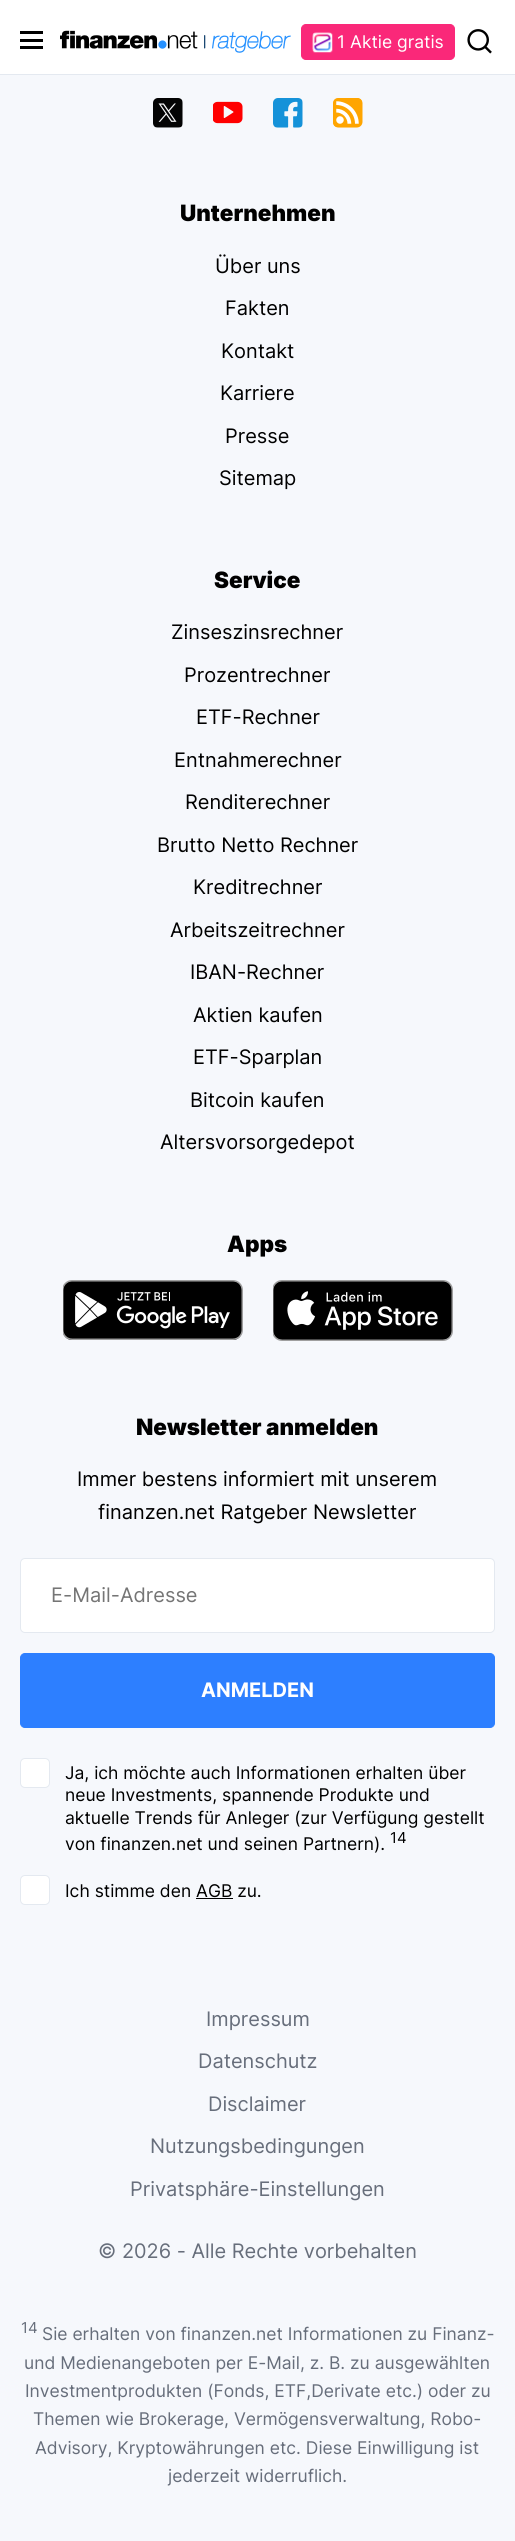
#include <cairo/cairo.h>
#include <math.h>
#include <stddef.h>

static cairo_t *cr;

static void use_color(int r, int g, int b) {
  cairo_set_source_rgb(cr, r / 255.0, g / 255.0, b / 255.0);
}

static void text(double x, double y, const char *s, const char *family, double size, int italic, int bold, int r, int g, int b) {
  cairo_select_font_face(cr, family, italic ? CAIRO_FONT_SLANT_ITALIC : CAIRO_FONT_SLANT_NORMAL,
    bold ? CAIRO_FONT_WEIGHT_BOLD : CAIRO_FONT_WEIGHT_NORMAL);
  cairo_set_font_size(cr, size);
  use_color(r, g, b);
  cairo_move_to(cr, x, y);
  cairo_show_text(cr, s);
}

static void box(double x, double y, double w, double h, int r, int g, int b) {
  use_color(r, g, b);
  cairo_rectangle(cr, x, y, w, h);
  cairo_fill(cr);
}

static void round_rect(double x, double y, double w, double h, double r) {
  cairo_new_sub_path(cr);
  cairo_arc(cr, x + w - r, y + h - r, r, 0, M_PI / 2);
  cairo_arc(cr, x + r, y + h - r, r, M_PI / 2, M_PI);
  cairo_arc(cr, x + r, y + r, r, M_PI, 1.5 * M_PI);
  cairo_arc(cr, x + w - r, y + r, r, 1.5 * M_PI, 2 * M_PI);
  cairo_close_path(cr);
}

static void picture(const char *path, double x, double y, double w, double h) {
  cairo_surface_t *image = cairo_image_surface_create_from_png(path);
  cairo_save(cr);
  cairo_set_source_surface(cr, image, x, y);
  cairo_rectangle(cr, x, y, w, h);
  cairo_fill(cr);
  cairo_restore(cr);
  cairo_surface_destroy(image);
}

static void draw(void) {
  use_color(246, 248, 252);
  cairo_paint(cr);
  box(0, 0, 515, 74, 255, 255, 255);
  box(0, 74, 515, 1, 228, 233, 240);
  box(20, 31, 23, 3, 0, 0, 0);
  box(20, 39, 23, 3, 0, 0, 0);
  box(20, 46, 23, 3, 0, 0, 0);
  picture("img_01.png", 60, 30, 231, 23);
  use_color(250, 40, 121);
  round_rect(301.5, 24.5, 153, 35, 4.5);
  cairo_fill_preserve(cr);
  cairo_set_line_width(cr, 1);
  cairo_stroke(cr);
  picture("img_02.png", 312, 32, 21, 21);
  picture("img_03.png", 467, 29, 25, 25);
  picture("img_04.png", 153, 98, 30, 30);
  picture("img_05.png", 213, 101, 30, 23);
  picture("img_06.png", 273, 98, 30, 30);
  picture("img_07.png", 333, 98, 30, 30);
  picture("img_08.png", 63, 1280, 180, 60);
  picture("img_09.png", 273, 1280, 180, 61);
  use_color(255, 255, 255);
  round_rect(20.5, 1558.5, 474, 74, 4.5);
  cairo_fill_preserve(cr);
  use_color(228, 233, 240);
  cairo_stroke(cr);
  use_color(45, 127, 255);
  round_rect(20.5, 1653.5, 474, 74, 4.5);
  cairo_fill_preserve(cr);
  cairo_stroke(cr);
  use_color(255, 255, 255);
  round_rect(20.5, 1758.5, 29, 29, 4.5);
  cairo_fill_preserve(cr);
  use_color(228, 233, 240);
  cairo_stroke(cr);
  use_color(255, 255, 255);
  round_rect(20.5, 1875.5, 29, 29, 4.5);
  cairo_fill_preserve(cr);
  use_color(228, 233, 240);
  cairo_stroke(cr);
  box(196, 1898, 37, 1, 0, 0, 0);
  text(337, 48, "1 Aktie gratis", "Inter", 17.5, 0, 0, 255, 255, 255);
  text(180, 221, "Unternehmen", "Inter Black", 22.5, 0, 0, 0, 0, 0);
  text(215, 273, "Über uns", "Inter", 20, 0, 0, 0, 0, 0);
  text(225, 315, "Fakten", "Inter", 20, 0, 0, 0, 0, 0);
  text(221, 358, "Kontakt", "Inter", 20, 0, 0, 0, 0, 0);
  text(220, 400, "Karriere", "Inter", 20, 0, 0, 0, 0, 0);
  text(225, 443, "Presse", "Inter", 20, 0, 0, 0, 0, 0);
  text(219, 485, "Sitemap", "Inter", 20, 0, 0, 0, 0, 0);
  text(214, 588, "Service", "Inter Black", 22.5, 0, 0, 0, 0, 0);
  text(171, 639, "Zinseszinsrechner", "Inter", 20, 0, 0, 0, 0, 0);
  text(184, 682, "Prozentrechner", "Inter", 20, 0, 0, 0, 0, 0);
  text(196, 724, "ETF-Rechner", "Inter", 20, 0, 0, 0, 0, 0);
  text(174, 767, "Entnahmerechner", "Inter", 20, 0, 0, 0, 0, 0);
  text(185, 809, "Renditerechner", "Inter", 20, 0, 0, 0, 0, 0);
  text(157, 852, "Brutto Netto Rechner", "Inter", 20, 0, 0, 0, 0, 0);
  text(193, 894, "Kreditrechner", "Inter", 20, 0, 0, 0, 0, 0);
  text(170, 937, "Arbeitszeitrechner", "Inter", 20, 0, 0, 0, 0, 0);
  text(190, 979, "IBAN-Rechner", "Inter", 20, 0, 0, 0, 0, 0);
  text(193, 1022, "Aktien kaufen", "Inter", 20, 0, 0, 0, 0, 0);
  text(193, 1064, "ETF-Sparplan", "Inter", 20, 0, 0, 0, 0, 0);
  text(190, 1107, "Bitcoin kaufen", "Inter", 20, 0, 0, 0, 0, 0);
  text(160, 1149, "Altersvorsorgedepot", "Inter", 20, 0, 0, 0, 0, 0);
  text(227, 1252, "Apps", "Inter Black", 22.5, 0, 0, 0, 0, 0);
  text(136, 1435, "Newsletter anmelden", "Inter Black", 22.5, 0, 0, 0, 0, 0);
  text(77, 1486, "Immer bestens informiert mit unserem", "Inter", 20, 0, 0, 0, 0, 0);
  text(98, 1519, "finanzen.net Ratgeber Newsletter", "Inter", 20, 0, 0, 0, 0, 0);
  text(51, 1602, "E-Mail-Adresse", "Inter", 20, 0, 0, 117, 117, 117);
  text(201, 1697, "ANMELDEN", "Inter", 20, 0, 1, 255, 255, 255);
  text(65, 1779, "Ja, ich möchte auch Informationen erhalten über", "Inter", 17.5, 0, 0, 0, 0, 0);
  text(65, 1801, "neue Investments, spannende Produkte und", "Inter", 17.5, 0, 0, 0, 0, 0);
  text(65, 1824, "aktuelle Trends für Anleger (zur Verfügung gestellt", "Inter", 17.5, 0, 0, 0, 0, 0);
  text(65, 1850, "von finanzen.net und seinen Partnern).", "Inter", 17.5, 0, 0, 0, 0, 0);
  text(390, 1843, "14", "Inter", 15, 0, 0, 0, 0, 0);
  text(65, 1897, "Ich stimme den AGB zu.", "Inter", 17.5, 0, 0, 0, 0, 0);
  text(206, 2026, "Impressum", "Inter", 20, 0, 0, 103, 110, 123);
  text(198, 2068, "Datenschutz", "Inter", 20, 0, 0, 103, 110, 123);
  text(208, 2111, "Disclaimer", "Inter", 20, 0, 0, 103, 110, 123);
  text(150, 2153, "Nutzungsbedingungen", "Inter", 20, 0, 0, 103, 110, 123);
  text(130, 2196, "Privatsphäre-Einstellungen", "Inter", 20, 0, 0, 103, 110, 123);
  text(98, 2258, "© 2026 - Alle Rechte vorbehalten", "Inter", 20, 0, 0, 103, 110, 123);
  text(21, 2333, "14", "Inter", 15, 0, 0, 103, 110, 123);
  text(42, 2340, "Sie erhalten von finanzen.net Informationen zu Finanz-", "Inter", 17.5, 0, 0, 103, 110, 123);
  text(24, 2369, "und Medienangeboten per E-Mail, z. B. zu ausgewählten", "Inter", 17.5, 0, 0, 103, 110, 123);
  text(25, 2397, "Investmentprodukten (Fonds, ETF,Derivate etc.) oder zu", "Inter", 17.5, 0, 0, 103, 110, 123);
  text(33, 2425, "Themen wie Brokerage, Vermögensverwaltung, Robo-", "Inter", 17.5, 0, 0, 103, 110, 123);
  text(35, 2454, "Advisory, Kryptowährungen etc. Diese Einwilligung ist", "Inter", 17.5, 0, 0, 103, 110, 123);
  text(168, 2482, "jederzeit widerruflich.", "Inter", 17.5, 0, 0, 103, 110, 123);
}

int main(void) {
  cairo_surface_t *surface = cairo_image_surface_create(CAIRO_FORMAT_RGB24, 515, 2541);
  cr = cairo_create(surface);
  cairo_font_options_t *options = cairo_font_options_create();
  cairo_font_options_set_hint_metrics(options, CAIRO_HINT_METRICS_OFF);
  cairo_font_options_set_hint_style(options, CAIRO_HINT_STYLE_NONE);
  cairo_set_font_options(cr, options);
  cairo_set_miter_limit(cr, 4);
  draw();
  cairo_surface_write_to_png(surface, "out.png");
  cairo_font_options_destroy(options);
  cairo_destroy(cr);
  cairo_surface_destroy(surface);
  return 0;
}
